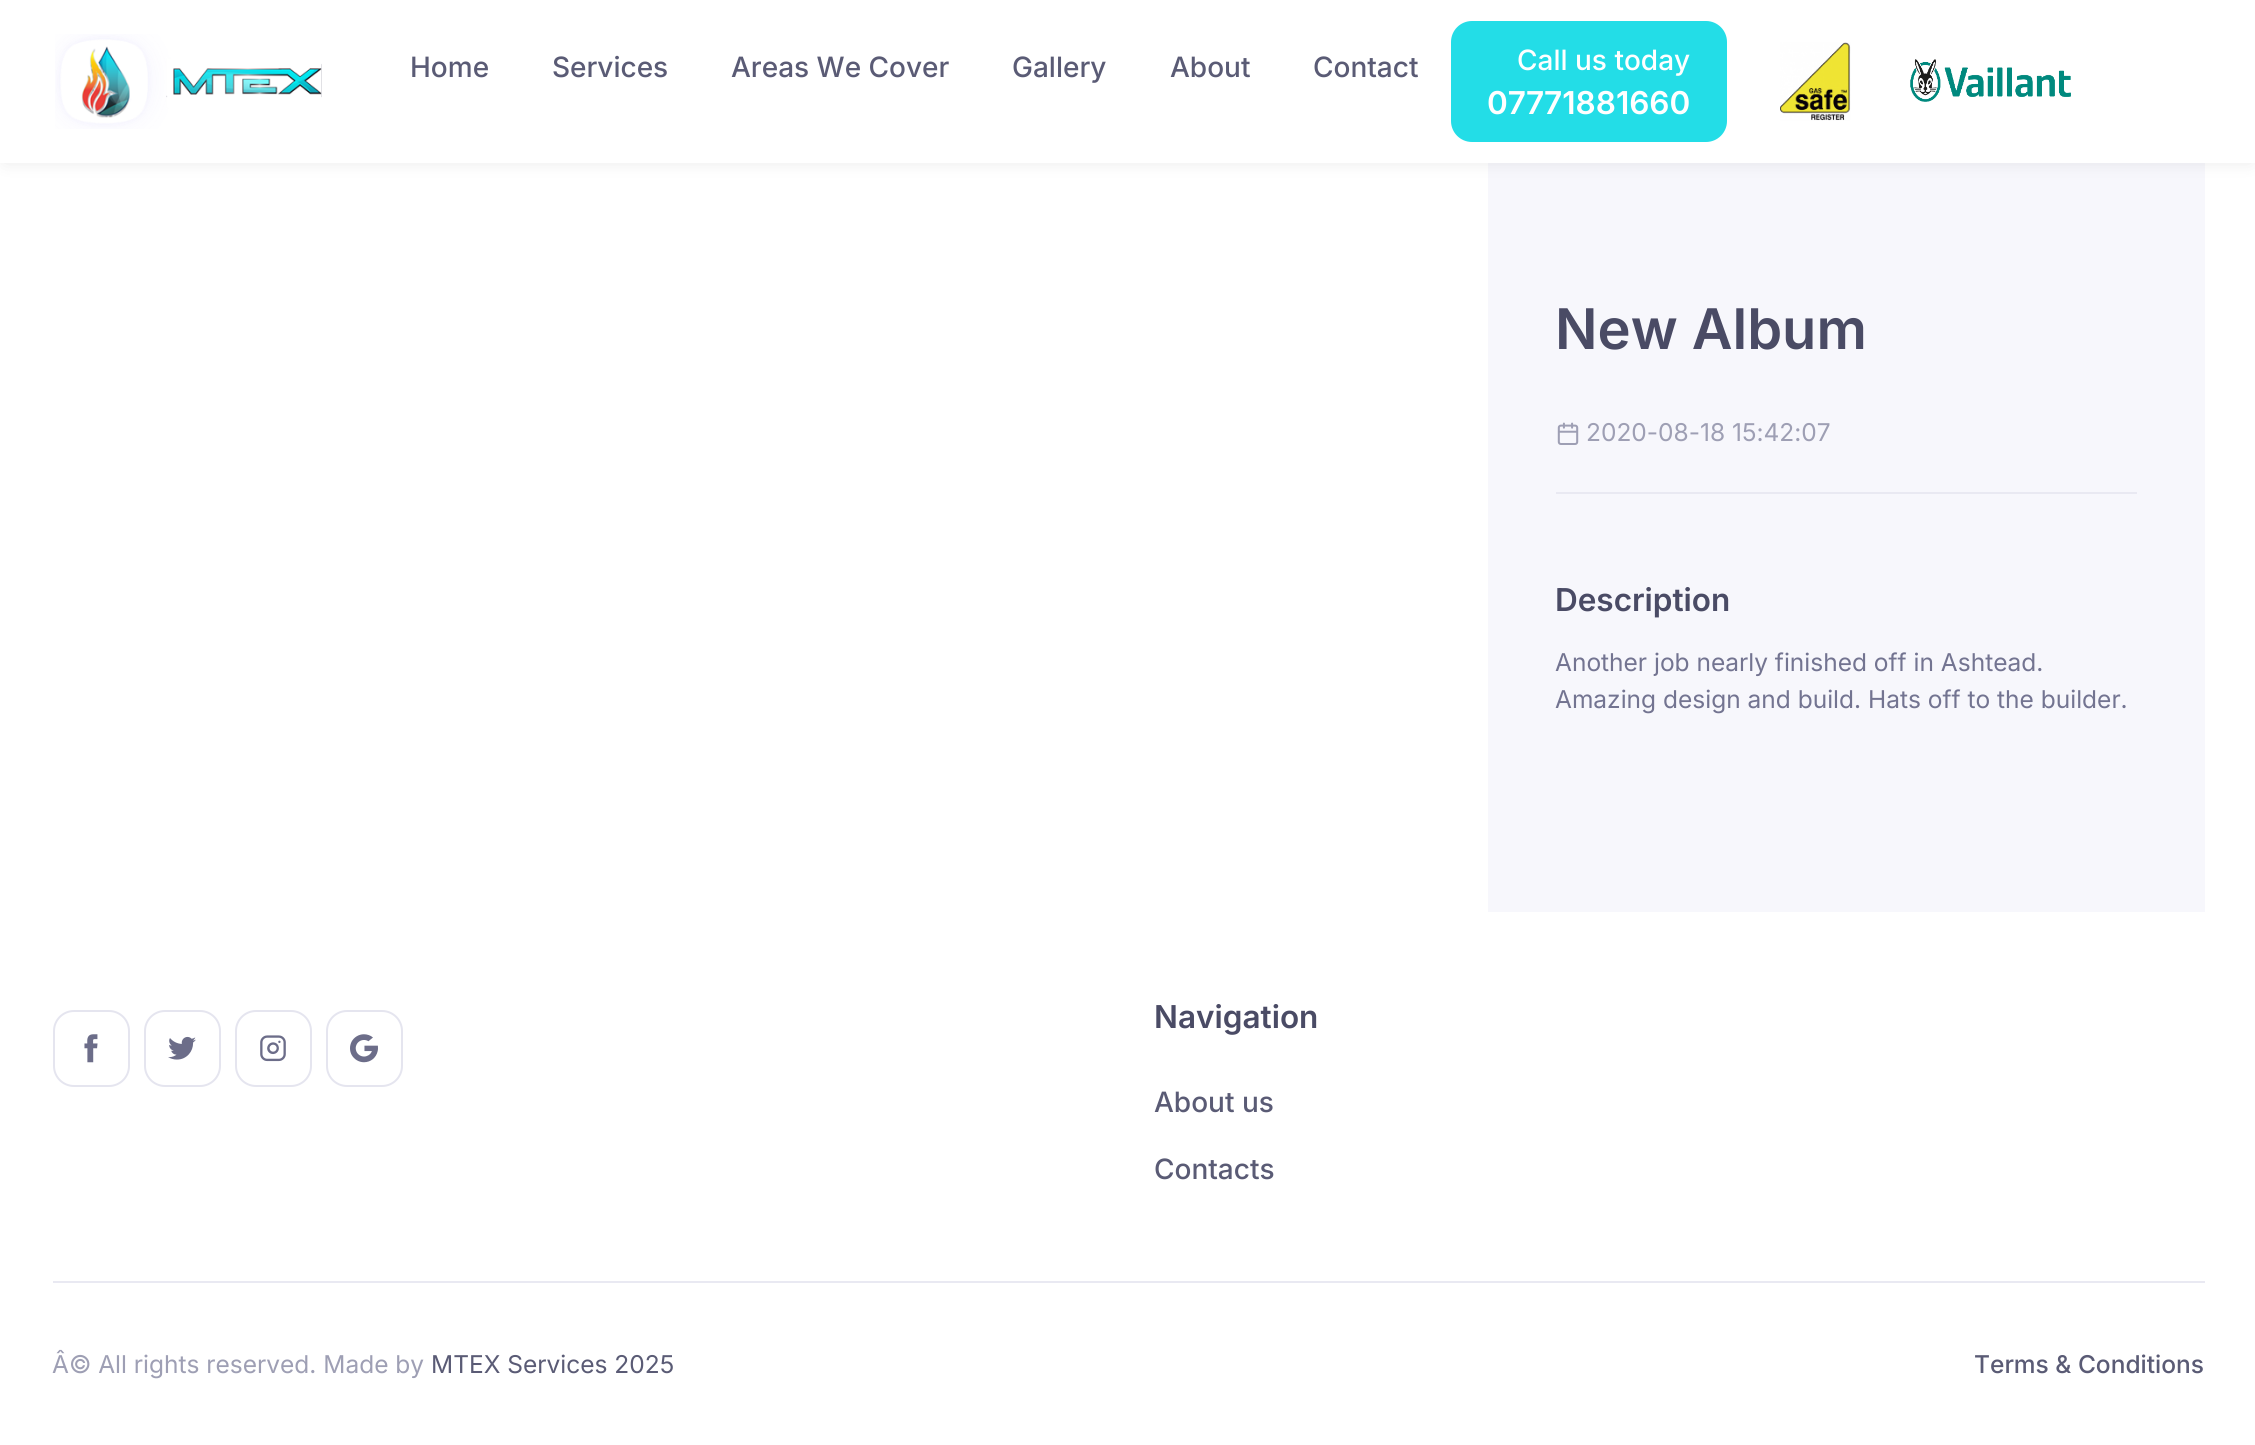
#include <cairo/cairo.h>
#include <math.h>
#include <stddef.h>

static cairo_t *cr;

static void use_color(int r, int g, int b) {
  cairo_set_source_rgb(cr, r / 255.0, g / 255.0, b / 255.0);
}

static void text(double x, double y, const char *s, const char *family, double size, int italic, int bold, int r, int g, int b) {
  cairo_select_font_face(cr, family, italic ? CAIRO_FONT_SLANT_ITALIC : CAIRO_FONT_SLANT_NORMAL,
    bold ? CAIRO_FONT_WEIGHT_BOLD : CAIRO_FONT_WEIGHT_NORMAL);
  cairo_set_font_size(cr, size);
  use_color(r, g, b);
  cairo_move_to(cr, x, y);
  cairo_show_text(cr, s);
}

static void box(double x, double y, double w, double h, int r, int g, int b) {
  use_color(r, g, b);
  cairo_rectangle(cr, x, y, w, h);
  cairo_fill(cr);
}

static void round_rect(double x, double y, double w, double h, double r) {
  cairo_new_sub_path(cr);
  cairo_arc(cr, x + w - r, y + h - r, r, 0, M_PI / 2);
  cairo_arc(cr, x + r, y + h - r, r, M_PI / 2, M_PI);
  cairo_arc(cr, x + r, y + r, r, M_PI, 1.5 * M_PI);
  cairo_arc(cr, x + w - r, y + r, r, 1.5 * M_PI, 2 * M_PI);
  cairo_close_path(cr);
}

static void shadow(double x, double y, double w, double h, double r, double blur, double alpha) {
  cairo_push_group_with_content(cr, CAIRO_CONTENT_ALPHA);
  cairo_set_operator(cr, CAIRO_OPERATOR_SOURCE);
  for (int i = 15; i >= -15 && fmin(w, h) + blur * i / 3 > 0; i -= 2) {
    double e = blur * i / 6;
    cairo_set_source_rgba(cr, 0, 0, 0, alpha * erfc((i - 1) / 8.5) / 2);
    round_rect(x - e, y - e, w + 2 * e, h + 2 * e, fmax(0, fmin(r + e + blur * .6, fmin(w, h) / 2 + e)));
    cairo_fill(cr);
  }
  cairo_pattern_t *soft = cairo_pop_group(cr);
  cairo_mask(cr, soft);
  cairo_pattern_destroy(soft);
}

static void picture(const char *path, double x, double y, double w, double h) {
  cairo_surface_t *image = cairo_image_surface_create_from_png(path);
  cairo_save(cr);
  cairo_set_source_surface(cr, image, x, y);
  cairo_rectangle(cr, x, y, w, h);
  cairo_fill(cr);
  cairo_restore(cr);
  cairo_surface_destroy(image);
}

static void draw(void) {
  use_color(255, 255, 255);
  cairo_paint(cr);
  box(1488, 163, 717, 749, 247, 247, 252);
  use_color(0, 0, 0);
  shadow(5, 9, 2246, 152, 0, 9, 0.1);
  box(0, 0, 2255, 163, 255, 255, 255);
  picture("img_01.png", 55, 34, 267, 95);
  use_color(35, 221, 231);
  round_rect(1452, 22, 274, 119, 20);
  cairo_fill_preserve(cr);
  cairo_stroke(cr);
  picture("img_02.png", 1780, 42, 71, 79);
  picture("img_03.png", 1910, 59, 161, 43);
  box(1556, 492, 581, 2, 233, 233, 242);
  picture("img_04.png", 1557, 422, 22, 23);
  round_rect(54, 1011, 75, 75, 20);
  use_color(229, 229, 239);
  cairo_stroke(cr);
  picture("img_05.png", 84, 1034, 14, 29);
  round_rect(145, 1011, 75, 75, 20);
  cairo_stroke(cr);
  picture("img_06.png", 168, 1036, 28, 24);
  round_rect(236, 1011, 75, 75, 20);
  cairo_stroke(cr);
  picture("img_07.png", 260, 1035, 26, 27);
  round_rect(327, 1011, 75, 75, 20);
  cairo_stroke(cr);
  picture("img_08.png", 350, 1034, 28, 29);
  box(53, 1281, 2152, 2, 233, 233, 242);
  text(410, 77, "Home", "Inter Medium", 28, 0, 0, 90, 91, 117);
  text(552, 77, "Services", "Inter Medium", 28, 0, 0, 90, 91, 117);
  text(731, 77, "Areas We Cover", "Inter Medium", 28, 0, 0, 90, 91, 117);
  text(1012, 77, "Gallery", "Inter Medium", 28, 0, 0, 90, 91, 117);
  text(1170, 77, "About", "Inter Medium", 28, 0, 0, 90, 91, 117);
  text(1313, 77, "Contact", "Inter Medium", 28, 0, 0, 90, 91, 117);
  text(1517, 70, "Call us today", "Inter Medium", 28, 0, 0, 255, 255, 255);
  text(1487, 114, "07771881660", "Inter SemiBold", 31.5, 0, 0, 255, 255, 255);
  text(1555, 349, "New Album", "Inter SemiBold", 56, 0, 0, 74, 75, 101);
  text(1586, 441, "2020-08-18 15:42:07", "Inter", 24.5, 0, 0, 158, 159, 180);
  text(1555, 611, "Description", "Inter SemiBold", 31.5, 0, 0, 74, 75, 101);
  text(1555, 671, "Another job nearly finished off in Ashtead.", "Inter", 24.5, 0, 0, 115, 116, 145);
  text(1555, 708, "Amazing design and build. Hats off to the builder.", "Inter", 24.5, 0, 0, 115, 116, 145);
  text(1154, 1028, "Navigation", "Inter SemiBold", 31.5, 0, 0, 74, 75, 101);
  text(1154, 1112, "About us", "Inter Medium", 28, 0, 0, 90, 91, 117);
  text(1154, 1179, "Contacts", "Inter Medium", 28, 0, 0, 90, 91, 117);
  text(52, 1373, "Â© All rights reserved. Made by", "Inter", 24.5, 0, 0, 158, 159, 180);
  text(431, 1373, "MTEX Services 2025", "Inter", 24.5, 0, 0, 90, 91, 117);
  text(1974, 1373, "Terms & Conditions", "Inter Medium", 24.5, 0, 0, 90, 91, 117);
}

int main(void) {
  cairo_surface_t *surface = cairo_image_surface_create(CAIRO_FORMAT_RGB24, 2255, 1445);
  cr = cairo_create(surface);
  cairo_font_options_t *options = cairo_font_options_create();
  cairo_font_options_set_hint_metrics(options, CAIRO_HINT_METRICS_OFF);
  cairo_font_options_set_hint_style(options, CAIRO_HINT_STYLE_NONE);
  cairo_set_font_options(cr, options);
  cairo_set_miter_limit(cr, 4);
  draw();
  cairo_surface_write_to_png(surface, "out.png");
  cairo_font_options_destroy(options);
  cairo_destroy(cr);
  cairo_surface_destroy(surface);
  return 0;
}
